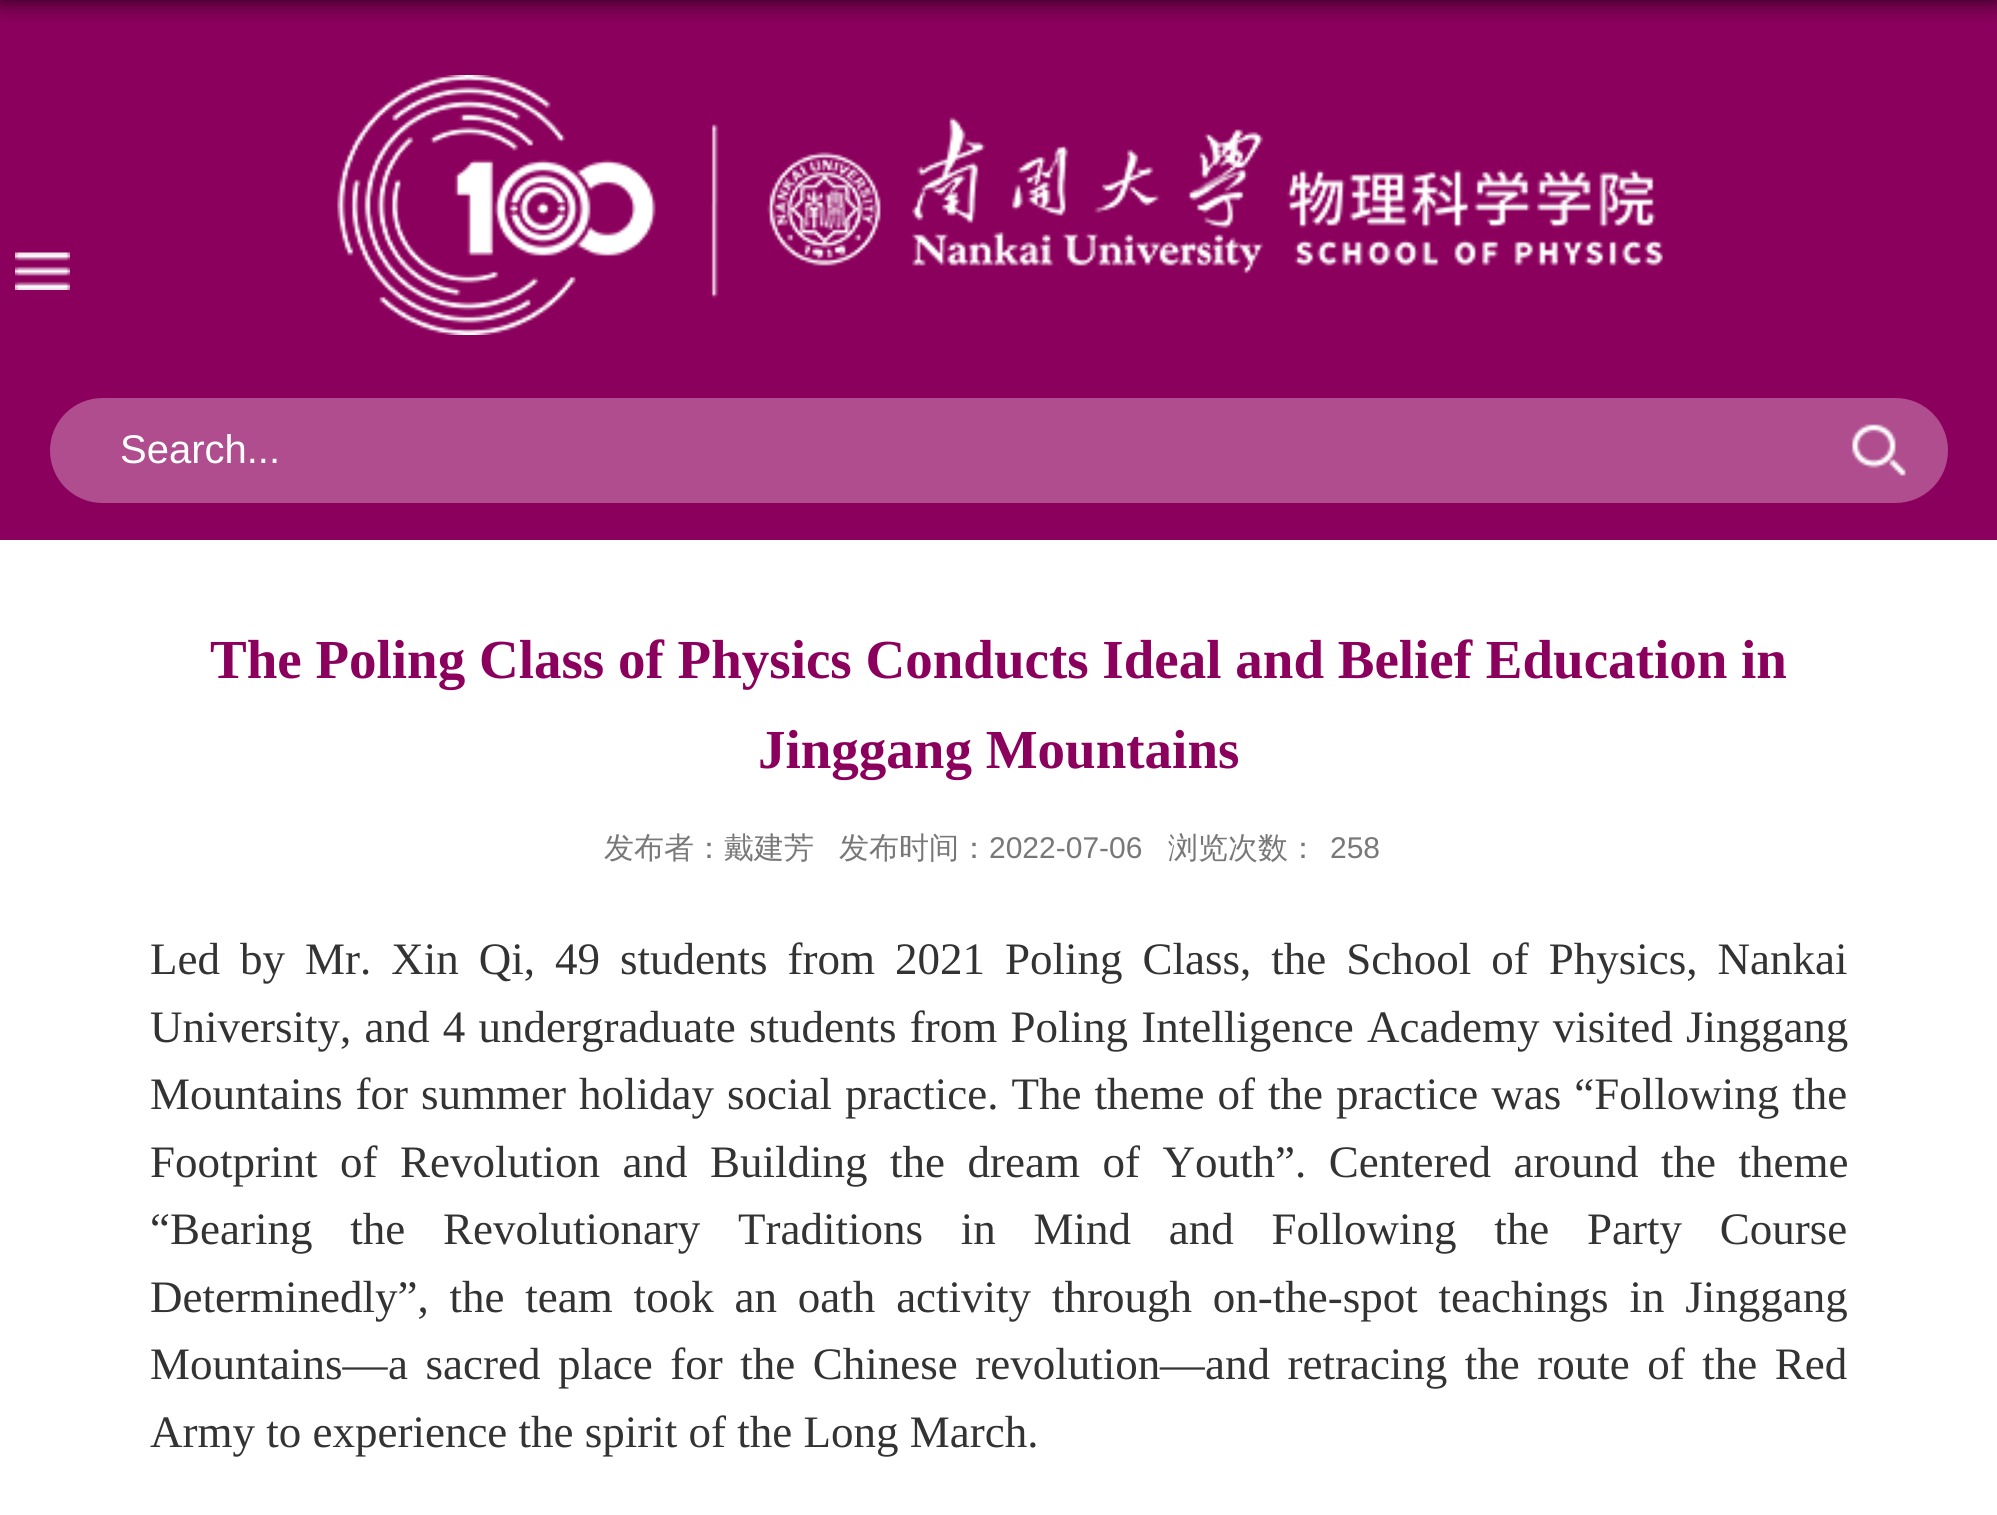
#include <cairo/cairo.h>
#include <math.h>
#include <stddef.h>

static cairo_t *cr;

static void use_color(int r, int g, int b) {
  cairo_set_source_rgb(cr, r / 255.0, g / 255.0, b / 255.0);
}

static void text(double x, double y, const char *s, const char *family, double size, int italic, int bold, int r, int g, int b) {
  cairo_select_font_face(cr, family, italic ? CAIRO_FONT_SLANT_ITALIC : CAIRO_FONT_SLANT_NORMAL,
    bold ? CAIRO_FONT_WEIGHT_BOLD : CAIRO_FONT_WEIGHT_NORMAL);
  cairo_set_font_size(cr, size);
  use_color(r, g, b);
  cairo_move_to(cr, x, y);
  cairo_show_text(cr, s);
}

static void spaced_text(double x, double y, const char *s, double letter, double word) {
  cairo_move_to(cr, x, y);
  while (*s) {
    char ch[5] = {0};
    int n = 0;
    do ch[n++] = *s++; while ((*s & 0xC0) == 0x80);
    cairo_show_text(cr, ch);
    cairo_rel_move_to(cr, letter + word * (*ch == ' '), 0);
  }
}

static void box(double x, double y, double w, double h, int r, int g, int b) {
  use_color(r, g, b);
  cairo_rectangle(cr, x, y, w, h);
  cairo_fill(cr);
}

static void round_rect(double x, double y, double w, double h, double r) {
  cairo_new_sub_path(cr);
  cairo_arc(cr, x + w - r, y + h - r, r, 0, M_PI / 2);
  cairo_arc(cr, x + r, y + h - r, r, M_PI / 2, M_PI);
  cairo_arc(cr, x + r, y + r, r, M_PI, 1.5 * M_PI);
  cairo_arc(cr, x + w - r, y + r, r, 1.5 * M_PI, 2 * M_PI);
  cairo_close_path(cr);
}

static void shadow(double x, double y, double w, double h, double r, double blur, double alpha) {
  cairo_push_group_with_content(cr, CAIRO_CONTENT_ALPHA);
  cairo_set_operator(cr, CAIRO_OPERATOR_SOURCE);
  for (int i = 15; i >= -15 && fmin(w, h) + blur * i / 3 > 0; i -= 2) {
    double e = blur * i / 6;
    cairo_set_source_rgba(cr, 0, 0, 0, alpha * erfc((i - 1) / 8.5) / 2);
    round_rect(x - e, y - e, w + 2 * e, h + 2 * e, fmax(0, fmin(r + e + blur * .6, fmin(w, h) / 2 + e)));
    cairo_fill(cr);
  }
  cairo_pattern_t *soft = cairo_pop_group(cr);
  cairo_mask(cr, soft);
  cairo_pattern_destroy(soft);
}

static void picture(const char *path, double x, double y, double w, double h) {
  cairo_surface_t *image = cairo_image_surface_create_from_png(path);
  cairo_save(cr);
  cairo_set_source_surface(cr, image, x, y);
  cairo_rectangle(cr, x, y, w, h);
  cairo_fill(cr);
  cairo_restore(cr);
  cairo_surface_destroy(image);
}

static void draw(void) {
  use_color(255, 255, 255);
  cairo_paint(cr);
  box(0, 0, 1997, 540, 140, 0, 93);
  use_color(0, 0, 0);
  shadow(0, -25, 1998, 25, 0, 12.5, 0.8);
  picture("img_01.png", 15, 252, 55, 38);
  picture("img_02.png", 337, 75, 1326, 260);
  use_color(175, 77, 142);
  round_rect(50, 398, 1898, 105, 52.5);
  cairo_fill(cr);
  picture("img_03.png", 1851, 424, 55, 52);
  text(120, 463, "Search...", "Liberation Sans", 40, 0, 0, 255, 255, 255);
  text(210, 678, "The Poling Class of Physics Conducts Ideal and Belief Education in", "Liberation Serif", 55, 0, 1, 140, 0, 93);
  text(758, 768, "Jinggang Mountains", "Liberation Serif", 55, 0, 1, 140, 0, 93);
  text(604, 858, "发布者：戴建芳", "WenQuanYi Zen Hei Medium", 30, 0, 0, 120, 120, 120);
  text(839, 858, "发布时间：", "WenQuanYi Zen Hei Medium", 30, 0, 0, 120, 120, 120);
  text(989, 858, "2022-07-06", "Liberation Sans", 30, 0, 0, 120, 120, 120);
  text(1168, 858, "浏览次数：", "WenQuanYi Zen Hei Medium", 30, 0, 0, 120, 120, 120);
  text(1330, 858, "258", "Liberation Sans", 30, 0, 0, 120, 120, 120);
  cairo_select_font_face(cr, "Liberation Serif", CAIRO_FONT_SLANT_NORMAL, CAIRO_FONT_WEIGHT_NORMAL);
  cairo_set_font_size(cr, 45);
  use_color(51, 51, 51);
  spaced_text(150, 974, "Led by Mr. Xin Qi, 49 students from 2021 Poling Class, the School of Physics, Nankai", 0, 8.75);
  spaced_text(150, 1042, "University, and 4 undergraduate students from Poling Intelligence Academy visited Jinggang", 0, 2);
  spaced_text(150, 1109, "Mountains for summer holiday social practice. The theme of the practice was “Following the", 0, 1.75);
  spaced_text(150, 1177, "Footprint of Revolution and Building the dream of Youth”. Centered around the theme", 0, 11.25);
  spaced_text(150, 1244, "“Bearing the Revolutionary Traditions in Mind and Following the Party Course", 0, 26.5);
  spaced_text(150, 1312, "Determinedly”, the team took an oath activity through on-the-spot teachings in Jinggang", 0, 9.6);
  text(150, 1379, "Mountains—", "Liberation Serif", 45, 0, 0, 51, 51, 51);
  spaced_text(388, 1379, "a sacred place for the Chinese revolution", 0, 6.25);
  text(1160, 1379, "—", "Liberation Serif", 45, 0, 0, 51, 51, 51);
  spaced_text(1205, 1379, "and retracing the route of the Red", 0, 6.25);
  box(1205, 1367, 1, 3, 255, 255, 255);
  text(150, 1447, "Army to experience the spirit of the Long March.", "Liberation Serif", 45, 0, 0, 51, 51, 51);
}

int main(void) {
  cairo_surface_t *surface = cairo_image_surface_create(CAIRO_FORMAT_RGB24, 1997, 1515);
  cr = cairo_create(surface);
  cairo_font_options_t *options = cairo_font_options_create();
  cairo_font_options_set_hint_metrics(options, CAIRO_HINT_METRICS_OFF);
  cairo_font_options_set_hint_style(options, CAIRO_HINT_STYLE_NONE);
  cairo_set_font_options(cr, options);
  cairo_set_miter_limit(cr, 4);
  draw();
  cairo_surface_write_to_png(surface, "out.png");
  cairo_font_options_destroy(options);
  cairo_destroy(cr);
  cairo_surface_destroy(surface);
  return 0;
}
